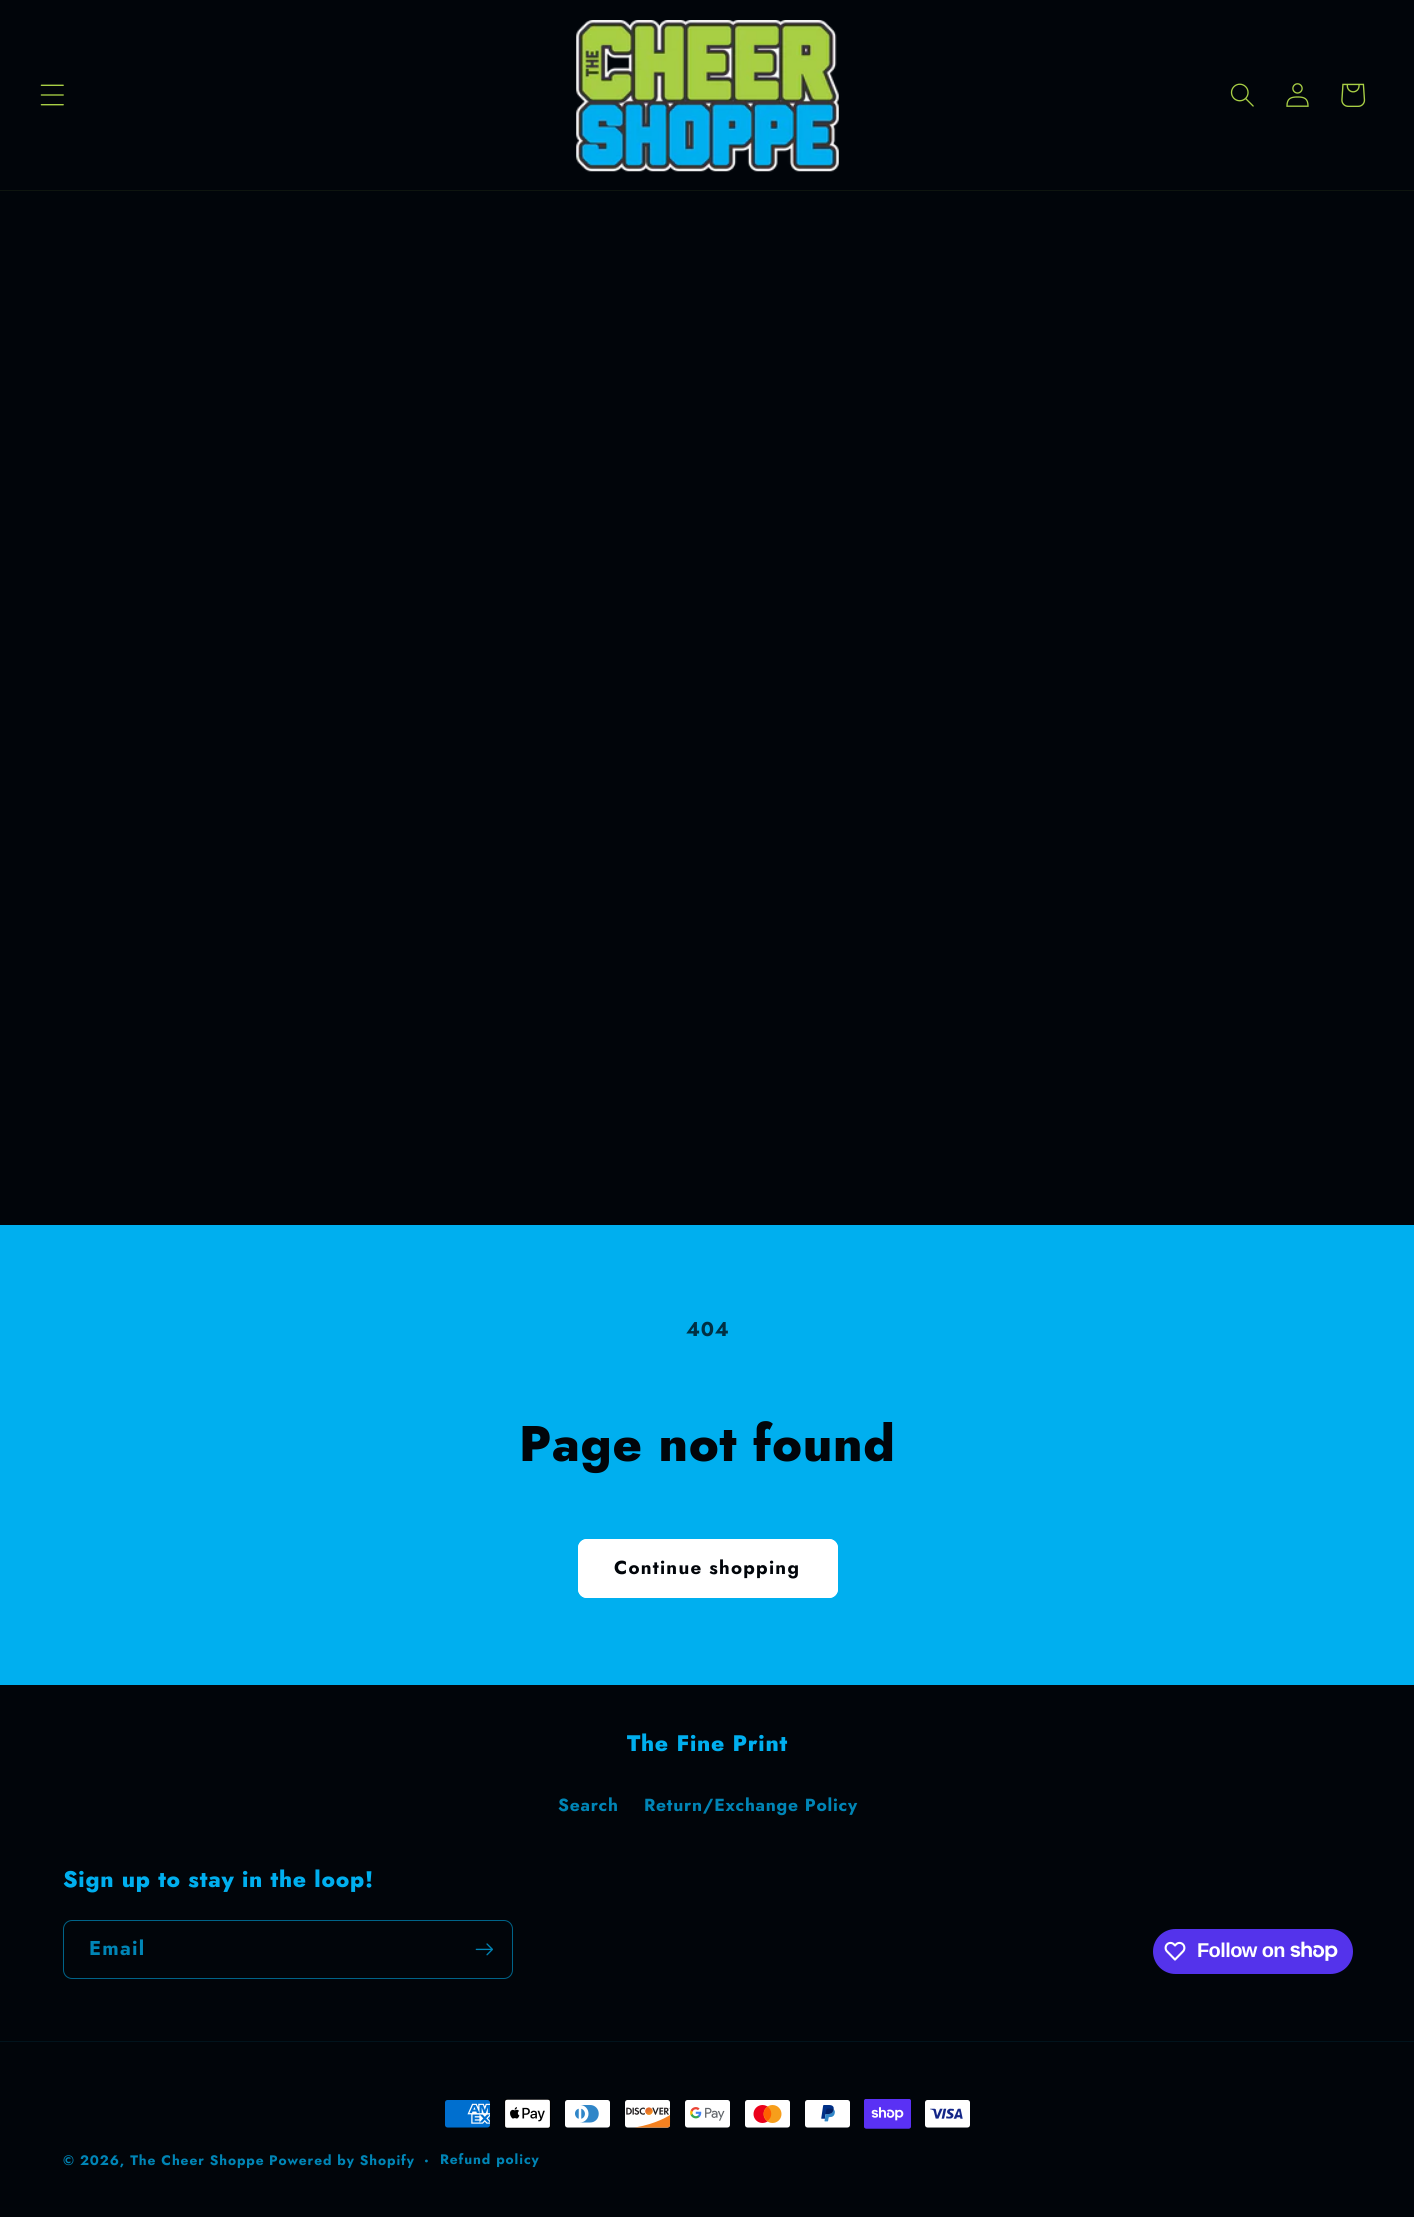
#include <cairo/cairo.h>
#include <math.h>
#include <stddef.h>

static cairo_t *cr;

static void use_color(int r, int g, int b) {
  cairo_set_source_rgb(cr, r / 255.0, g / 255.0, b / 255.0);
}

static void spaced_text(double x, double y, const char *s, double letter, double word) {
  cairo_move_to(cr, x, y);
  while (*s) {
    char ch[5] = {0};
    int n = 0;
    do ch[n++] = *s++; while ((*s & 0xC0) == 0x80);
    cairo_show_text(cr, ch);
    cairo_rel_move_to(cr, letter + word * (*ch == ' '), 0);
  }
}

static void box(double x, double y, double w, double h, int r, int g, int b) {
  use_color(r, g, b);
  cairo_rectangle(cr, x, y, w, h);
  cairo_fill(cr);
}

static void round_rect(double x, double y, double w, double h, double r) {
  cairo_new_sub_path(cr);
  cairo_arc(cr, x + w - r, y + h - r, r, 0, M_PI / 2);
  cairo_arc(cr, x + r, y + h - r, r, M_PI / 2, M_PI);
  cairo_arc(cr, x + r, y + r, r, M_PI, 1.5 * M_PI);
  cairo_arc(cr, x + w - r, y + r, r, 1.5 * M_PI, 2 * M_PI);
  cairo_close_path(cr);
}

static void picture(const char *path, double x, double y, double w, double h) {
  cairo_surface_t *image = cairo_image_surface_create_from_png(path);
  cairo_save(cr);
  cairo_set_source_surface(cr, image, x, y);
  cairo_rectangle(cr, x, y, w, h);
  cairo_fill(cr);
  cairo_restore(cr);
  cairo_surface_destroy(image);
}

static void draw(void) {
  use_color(0, 175, 239);
  cairo_paint(cr);
  box(0, 0, 1414, 190, 1, 5, 10);
  box(0, 190, 1414, 1, 14, 21, 15);
  picture("img_01.png", 40, 84, 24, 22);
  picture("img_02.png", 576, 20, 263, 152);
  picture("img_03.png", 1230, 83, 24, 24);
  picture("img_04.png", 1286, 83, 23, 24);
  picture("img_05.png", 1341, 83, 25, 24);
  box(0, 191, 1414, 1034, 1, 5, 10);
  use_color(255, 255, 255);
  round_rect(578, 1539, 260, 59, 9);
  cairo_fill(cr);
  round_rect(578.5, 1539.5, 259, 58, 8.5);
  cairo_set_line_width(cr, 1);
  cairo_stroke(cr);
  box(0, 1685, 1414, 532, 1, 5, 10);
  round_rect(63.5, 1920.5, 449, 58, 8.5);
  use_color(0, 99, 136);
  cairo_stroke(cr);
  picture("img_06.png", 475, 1943, 18, 13);
  use_color(84, 51, 235);
  round_rect(1153, 1929, 200, 45, 22.5);
  cairo_fill(cr);
  picture("img_07.png", 1164, 1941, 22, 20);
  picture("img_08.png", 1290, 1941, 48, 20);
  box(0, 2041, 1414, 1, 1, 19, 28);
  picture("img_09.png", 445, 2100, 45, 28);
  picture("img_10.png", 504, 2099, 47, 30);
  picture("img_11.png", 565, 2100, 45, 28);
  picture("img_12.png", 625, 2100, 46, 28);
  picture("img_13.png", 685, 2100, 45, 28);
  picture("img_14.png", 745, 2100, 45, 28);
  picture("img_15.png", 805, 2100, 45, 28);
  picture("img_16.png", 864, 2099, 47, 30);
  picture("img_17.png", 925, 2100, 45, 28);
  cairo_select_font_face(cr, "Jost", CAIRO_FONT_SLANT_NORMAL, CAIRO_FONT_WEIGHT_BOLD);
  cairo_set_font_size(cr, 20);
  use_color(1, 48, 67);
  spaced_text(686, 1336, "404", 0.75, 0);
  cairo_select_font_face(cr, "Jost ExtraBold", CAIRO_FONT_SLANT_NORMAL, CAIRO_FONT_WEIGHT_NORMAL);
  cairo_set_font_size(cr, 50);
  use_color(1, 5, 10);
  spaced_text(519, 1461, "Page not found", 0.75, 0);
  cairo_select_font_face(cr, "Jost", CAIRO_FONT_SLANT_NORMAL, CAIRO_FONT_WEIGHT_BOLD);
  cairo_set_font_size(cr, 18.75);
  spaced_text(614, 1574, "Continue shopping", 1.25, 0);
  cairo_select_font_face(cr, "Jost ExtraBold", CAIRO_FONT_SLANT_NORMAL, CAIRO_FONT_WEIGHT_NORMAL);
  cairo_set_font_size(cr, 22.5);
  use_color(0, 175, 239);
  spaced_text(627, 1751, "The Fine Print", 0.75, 0);
  cairo_select_font_face(cr, "Jost", CAIRO_FONT_SLANT_NORMAL, CAIRO_FONT_WEIGHT_BOLD);
  cairo_set_font_size(cr, 17.5);
  use_color(0, 133, 182);
  spaced_text(558, 1811, "Search", 0.75, 0);
  spaced_text(644, 1811, "Return/Exchange Policy", 0.75, 0);
  cairo_select_font_face(cr, "Jost ExtraBold", CAIRO_FONT_SLANT_NORMAL, CAIRO_FONT_WEIGHT_NORMAL);
  cairo_set_font_size(cr, 22.5);
  use_color(0, 175, 239);
  spaced_text(63, 1887, "Sign up to stay in the loop!", 0.75, 0);
  cairo_select_font_face(cr, "Jost", CAIRO_FONT_SLANT_NORMAL, CAIRO_FONT_WEIGHT_BOLD);
  cairo_set_font_size(cr, 20);
  use_color(0, 133, 182);
  spaced_text(89, 1955, "Email", 1.25, 0);
  cairo_select_font_face(cr, "Liberation Sans", CAIRO_FONT_SLANT_NORMAL, CAIRO_FONT_WEIGHT_BOLD);
  use_color(255, 255, 255);
  spaced_text(1197, 1957, "Follow on", -0.6, 0);
  cairo_select_font_face(cr, "Jost", CAIRO_FONT_SLANT_NORMAL, CAIRO_FONT_WEIGHT_BOLD);
  cairo_set_font_size(cr, 13.75);
  use_color(0, 133, 182);
  spaced_text(63, 2165, "© 2026, The Cheer Shoppe", 0.9, 0);
  spaced_text(269, 2165, "Powered by Shopify", 0.9, 0);
  cairo_set_font_size(cr, 15);
  spaced_text(424, 2165, "·", 0.9, 0);
  cairo_set_font_size(cr, 13.75);
  spaced_text(440, 2164, "Refund policy", 0.9, 0);
}

int main(void) {
  cairo_surface_t *surface = cairo_image_surface_create(CAIRO_FORMAT_RGB24, 1414, 2217);
  cr = cairo_create(surface);
  cairo_font_options_t *options = cairo_font_options_create();
  cairo_font_options_set_hint_metrics(options, CAIRO_HINT_METRICS_OFF);
  cairo_font_options_set_hint_style(options, CAIRO_HINT_STYLE_NONE);
  cairo_set_font_options(cr, options);
  cairo_set_miter_limit(cr, 4);
  draw();
  cairo_surface_write_to_png(surface, "out.png");
  cairo_font_options_destroy(options);
  cairo_destroy(cr);
  cairo_surface_destroy(surface);
  return 0;
}
